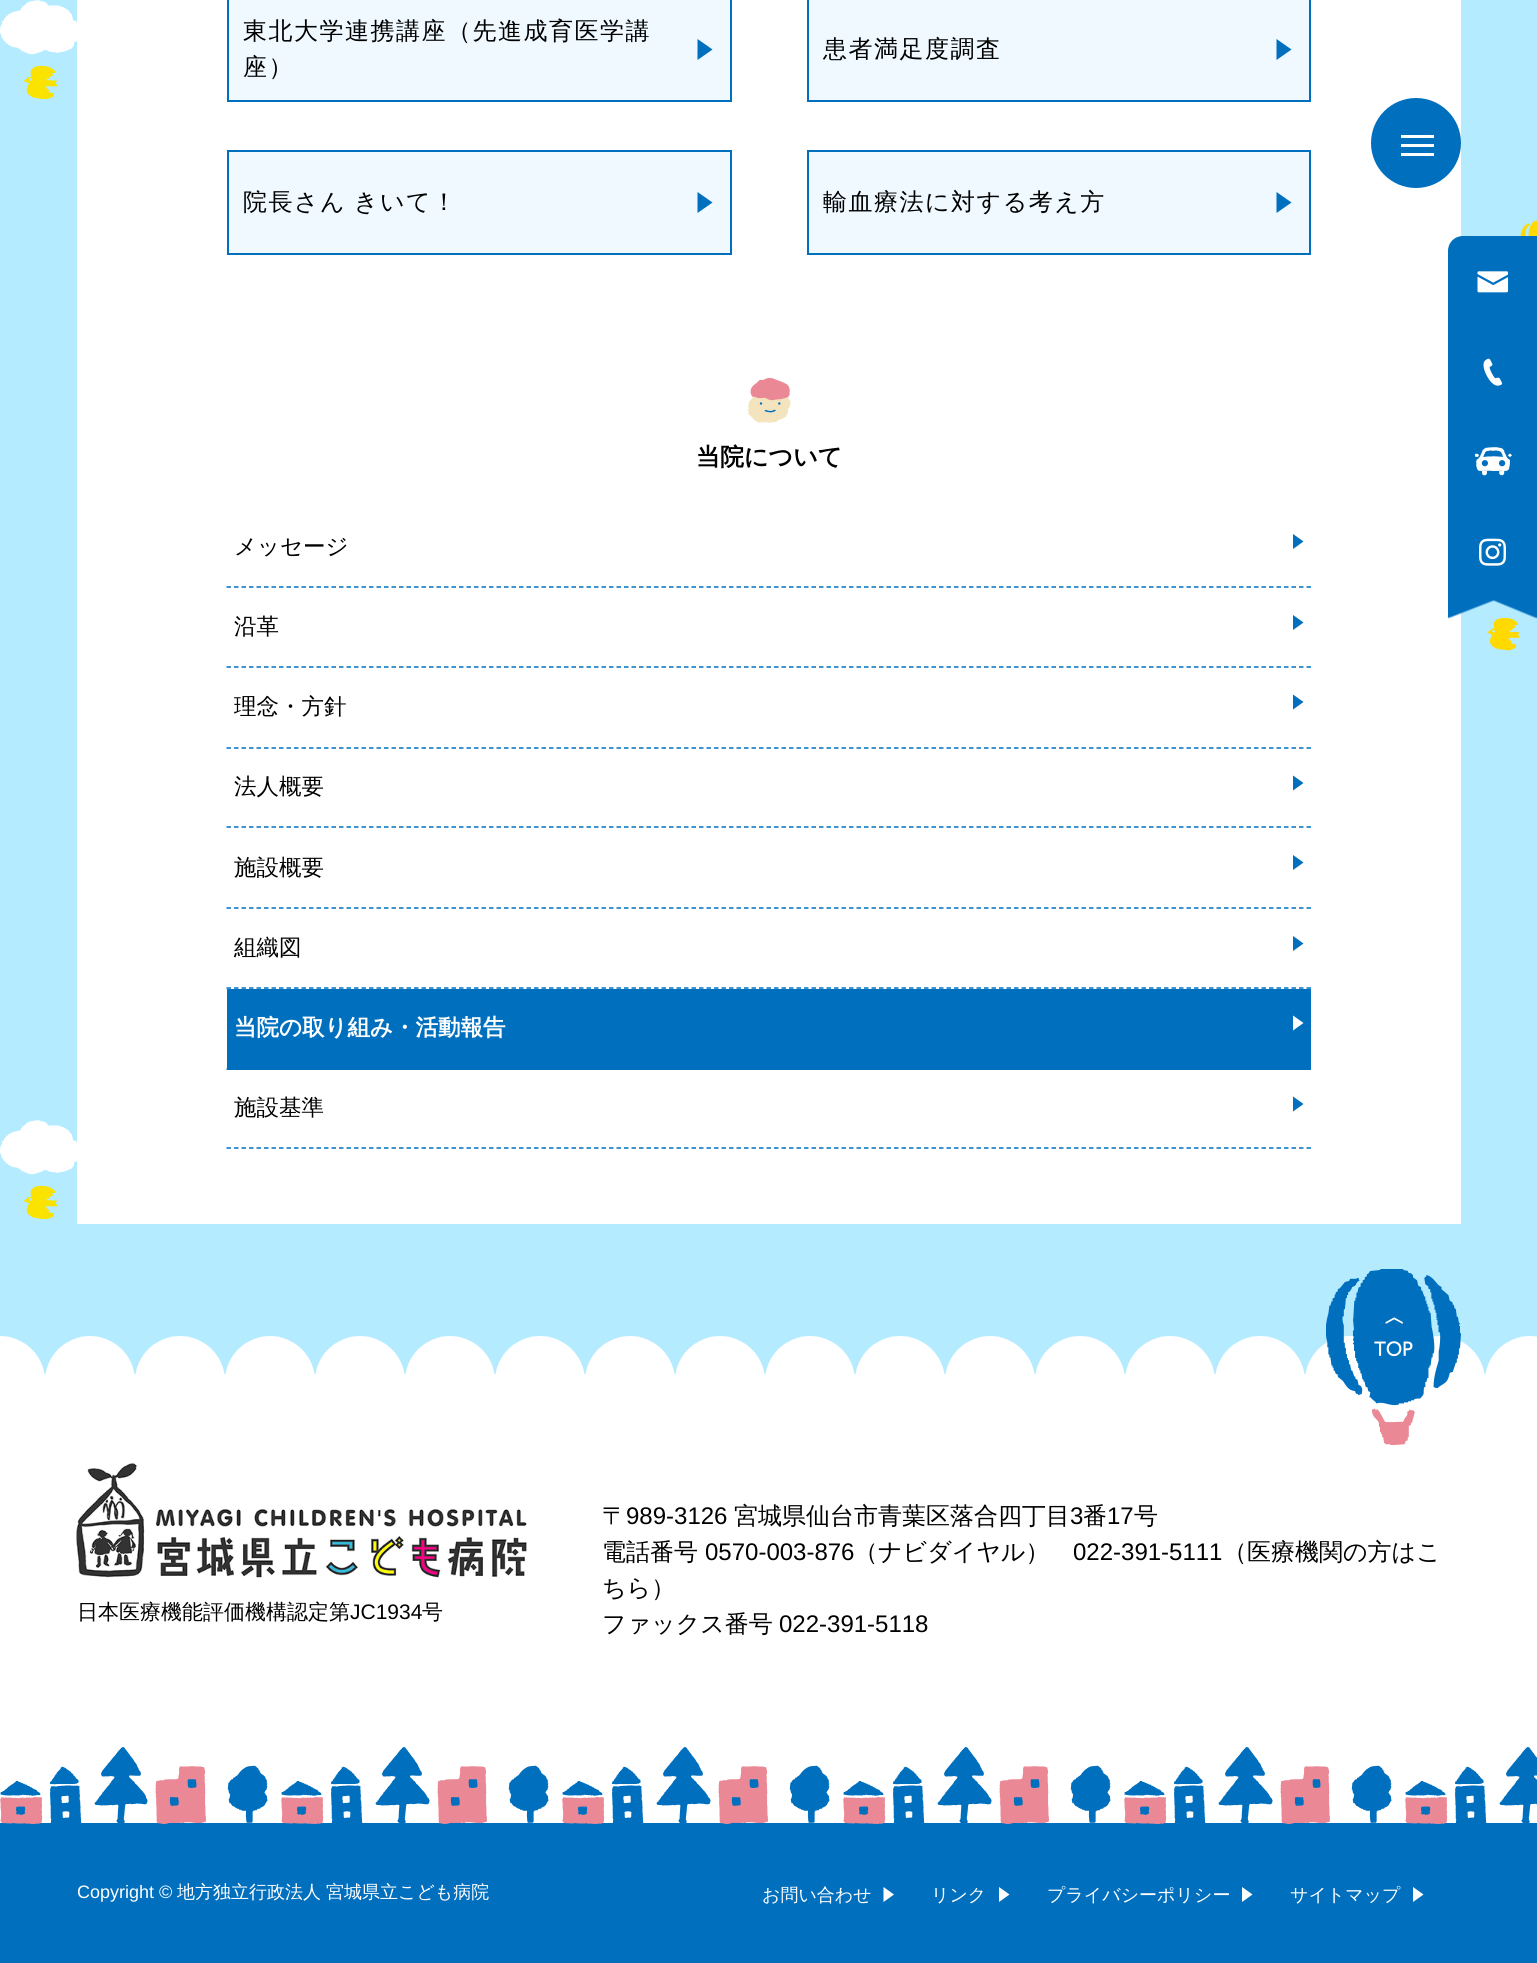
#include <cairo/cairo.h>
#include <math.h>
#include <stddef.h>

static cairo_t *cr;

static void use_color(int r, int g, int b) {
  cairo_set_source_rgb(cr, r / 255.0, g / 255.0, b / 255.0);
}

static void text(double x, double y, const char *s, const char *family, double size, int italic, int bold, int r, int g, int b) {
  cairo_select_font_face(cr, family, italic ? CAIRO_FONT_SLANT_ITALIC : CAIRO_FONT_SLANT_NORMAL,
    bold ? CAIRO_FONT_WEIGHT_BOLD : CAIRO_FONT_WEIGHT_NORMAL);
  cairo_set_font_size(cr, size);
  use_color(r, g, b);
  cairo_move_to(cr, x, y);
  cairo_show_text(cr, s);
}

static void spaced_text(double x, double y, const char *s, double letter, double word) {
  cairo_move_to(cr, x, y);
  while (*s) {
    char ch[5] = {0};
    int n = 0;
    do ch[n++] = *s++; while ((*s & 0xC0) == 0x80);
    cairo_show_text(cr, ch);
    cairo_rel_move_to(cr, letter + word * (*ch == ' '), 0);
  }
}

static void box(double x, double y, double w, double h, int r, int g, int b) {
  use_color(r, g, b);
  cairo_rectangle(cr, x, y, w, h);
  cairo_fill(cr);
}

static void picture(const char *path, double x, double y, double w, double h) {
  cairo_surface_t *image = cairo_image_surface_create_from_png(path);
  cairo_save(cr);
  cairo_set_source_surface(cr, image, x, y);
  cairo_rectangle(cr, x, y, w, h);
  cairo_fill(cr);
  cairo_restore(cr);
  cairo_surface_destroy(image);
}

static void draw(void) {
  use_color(180, 235, 255);
  cairo_paint(cr);
  picture("img_01.png", 0, 0, 1537, 1220);
  box(77, 0, 1384, 1224, 255, 255, 255);
  use_color(239, 249, 255);
  cairo_rectangle(cr, 228, -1, 503, 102);
  cairo_fill_preserve(cr);
  use_color(0, 111, 190);
  cairo_stroke(cr);
  cairo_new_path(cr);
  cairo_move_to(cr, 697.5, 60);
  cairo_line_to(cr, 697.5, 39);
  cairo_line_to(cr, 712.5, 49.5);
  cairo_close_path(cr);
  cairo_fill(cr);
  use_color(239, 249, 255);
  cairo_rectangle(cr, 808, -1, 502, 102);
  cairo_fill_preserve(cr);
  use_color(0, 111, 190);
  cairo_stroke(cr);
  cairo_new_path(cr);
  cairo_move_to(cr, 1276.5, 60);
  cairo_line_to(cr, 1276.5, 39);
  cairo_line_to(cr, 1291.5, 49.5);
  cairo_close_path(cr);
  cairo_fill(cr);
  use_color(239, 249, 255);
  cairo_rectangle(cr, 228, 151, 503, 103);
  cairo_fill_preserve(cr);
  use_color(0, 111, 190);
  cairo_stroke(cr);
  cairo_new_path(cr);
  cairo_move_to(cr, 697.5, 213);
  cairo_line_to(cr, 697.5, 192);
  cairo_line_to(cr, 712.5, 202.5);
  cairo_close_path(cr);
  cairo_fill(cr);
  use_color(239, 249, 255);
  cairo_rectangle(cr, 808, 151, 502, 103);
  cairo_fill_preserve(cr);
  use_color(0, 111, 190);
  cairo_stroke(cr);
  cairo_new_path(cr);
  cairo_move_to(cr, 1276.5, 213);
  cairo_line_to(cr, 1276.5, 192);
  cairo_line_to(cr, 1291.5, 202.5);
  cairo_close_path(cr);
  cairo_fill(cr);
  picture("img_02.png", 747, 378, 44, 45);
  cairo_new_path(cr);
  cairo_move_to(cr, 226.5, 587);
  cairo_line_to(cr, 1311, 587);
  cairo_set_line_width(cr, 1.5);
  cairo_set_dash(cr, (double[]){4.5, 3}, 2, 0);
  cairo_stroke(cr);
  cairo_new_path(cr);
  cairo_move_to(cr, 1293, 549);
  cairo_line_to(cr, 1293, 534);
  cairo_line_to(cr, 1303.5, 541.5);
  cairo_close_path(cr);
  cairo_fill(cr);
  cairo_new_path(cr);
  cairo_move_to(cr, 226.5, 667);
  cairo_line_to(cr, 1311, 667);
  cairo_stroke(cr);
  cairo_new_path(cr);
  cairo_move_to(cr, 1293, 630);
  cairo_line_to(cr, 1293, 615);
  cairo_line_to(cr, 1303.5, 622.5);
  cairo_close_path(cr);
  cairo_fill(cr);
  cairo_new_path(cr);
  cairo_move_to(cr, 226.5, 748);
  cairo_line_to(cr, 1311, 748);
  cairo_stroke(cr);
  cairo_new_path(cr);
  cairo_move_to(cr, 1293, 709.5);
  cairo_line_to(cr, 1293, 694.5);
  cairo_line_to(cr, 1303.5, 702);
  cairo_close_path(cr);
  cairo_fill(cr);
  cairo_new_path(cr);
  cairo_move_to(cr, 226.5, 827);
  cairo_line_to(cr, 1311, 827);
  cairo_stroke(cr);
  cairo_new_path(cr);
  cairo_move_to(cr, 1293, 790.5);
  cairo_line_to(cr, 1293, 775.5);
  cairo_line_to(cr, 1303.5, 783);
  cairo_close_path(cr);
  cairo_fill(cr);
  cairo_new_path(cr);
  cairo_move_to(cr, 226.5, 908);
  cairo_line_to(cr, 1311, 908);
  cairo_stroke(cr);
  cairo_new_path(cr);
  cairo_move_to(cr, 1293, 870);
  cairo_line_to(cr, 1293, 855);
  cairo_line_to(cr, 1303.5, 862.5);
  cairo_close_path(cr);
  cairo_fill(cr);
  cairo_new_path(cr);
  cairo_move_to(cr, 226.5, 988);
  cairo_line_to(cr, 1311, 988);
  cairo_stroke(cr);
  cairo_new_path(cr);
  cairo_move_to(cr, 1293, 951);
  cairo_line_to(cr, 1293, 936);
  cairo_line_to(cr, 1303.5, 943.5);
  cairo_close_path(cr);
  cairo_fill(cr);
  box(227, 989, 1084, 81, 0, 111, 190);
  cairo_new_path(cr);
  cairo_move_to(cr, 226.5, 1069);
  cairo_line_to(cr, 1311, 1069);
  cairo_stroke(cr);
  use_color(255, 255, 255);
  cairo_new_path(cr);
  cairo_move_to(cr, 1293, 1030.5);
  cairo_line_to(cr, 1293, 1015.5);
  cairo_line_to(cr, 1303.5, 1023);
  cairo_close_path(cr);
  cairo_fill(cr);
  cairo_new_path(cr);
  cairo_move_to(cr, 226.5, 1148);
  cairo_line_to(cr, 1311, 1148);
  use_color(0, 111, 190);
  cairo_stroke(cr);
  cairo_new_path(cr);
  cairo_move_to(cr, 1293, 1111.5);
  cairo_line_to(cr, 1293, 1096.5);
  cairo_line_to(cr, 1303.5, 1104);
  cairo_close_path(cr);
  cairo_fill(cr);
  cairo_arc(cr, 1416, 143, 45, 0, 2 * M_PI);
  cairo_fill(cr);
  box(1401, 135, 33, 3, 255, 255, 255);
  box(1401, 144, 33, 3, 255, 255, 255);
  box(1401, 153, 33, 3, 255, 255, 255);
  use_color(0, 111, 190);
  cairo_new_path(cr);
  cairo_move_to(cr, 1463, 236);
  cairo_line_to(cr, 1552, 236);
  cairo_line_to(cr, 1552, 326);
  cairo_line_to(cr, 1448, 326);
  cairo_line_to(cr, 1448, 251);
  cairo_curve_to(cr, 1448, 242.5, 1454.5, 236, 1463, 236);
  cairo_close_path(cr);
  cairo_fill(cr);
  picture("img_03.png", 1477, 271, 32, 22);
  box(1448, 326, 89, 270, 0, 111, 190);
  picture("img_04.png", 1483, 358, 19, 28);
  picture("img_05.png", 1475, 447, 37, 29);
  picture("img_06.png", 1479, 538, 27, 28);
  picture("img_07.png", 1448, 596, 89, 23);
  box(0, 1374, 1537, 449, 255, 255, 255);
  picture("img_09.png", 0, 1336, 1537, 38);
  picture("img_08.png", 1326, 1269, 135, 176);
  picture("img_10.png", 76, 1463, 451, 115);
  box(0, 1823, 1537, 140, 0, 111, 190);
  picture("img_11.png", 0, 1747, 1537, 77);
  use_color(255, 255, 255);
  cairo_new_path(cr);
  cairo_move_to(cr, 883.5, 1902);
  cairo_line_to(cr, 883.5, 1887);
  cairo_line_to(cr, 894, 1894.5);
  cairo_close_path(cr);
  cairo_fill(cr);
  cairo_new_path(cr);
  cairo_move_to(cr, 999, 1902);
  cairo_line_to(cr, 999, 1887);
  cairo_line_to(cr, 1009.5, 1894.5);
  cairo_close_path(cr);
  cairo_fill(cr);
  cairo_new_path(cr);
  cairo_move_to(cr, 1242, 1902);
  cairo_line_to(cr, 1242, 1887);
  cairo_line_to(cr, 1252.5, 1894.5);
  cairo_close_path(cr);
  cairo_fill(cr);
  cairo_new_path(cr);
  cairo_move_to(cr, 1413, 1902);
  cairo_line_to(cr, 1413, 1887);
  cairo_line_to(cr, 1423.5, 1894.5);
  cairo_close_path(cr);
  cairo_fill(cr);
  cairo_select_font_face(cr, "WenQuanYi Zen Hei Medium", CAIRO_FONT_SLANT_NORMAL, CAIRO_FONT_WEIGHT_NORMAL);
  cairo_set_font_size(cr, 24);
  use_color(0, 0, 0);
  spaced_text(243, 39, "東北大学連携講座（先進成育医学講", 1.5, 0);
  spaced_text(243, 75, "座）", 1.5, 0);
  spaced_text(823, 57, "患者満足度調査", 1.5, 0);
  spaced_text(243, 210, "院長さん きいて！", 1.5, -1);
  spaced_text(823, 210, "輸血療法に対する考え方", 1.5, 0);
  text(696, 465, "当院について", "WenQuanYi Zen Hei", 24, 0, 1, 0, 0, 0);
  text(234, 554, "メッセージ", "WenQuanYi Zen Hei Medium", 22.5, 0, 0, 0, 0, 0);
  text(234, 634, "沿革", "WenQuanYi Zen Hei Medium", 22.5, 0, 0, 0, 0, 0);
  text(234, 714, "理念・方針", "WenQuanYi Zen Hei Medium", 22.5, 0, 0, 0, 0, 0);
  text(234, 794, "法人概要", "WenQuanYi Zen Hei Medium", 22.5, 0, 0, 0, 0, 0);
  text(234, 875, "施設概要", "WenQuanYi Zen Hei Medium", 22.5, 0, 0, 0, 0, 0);
  text(234, 955, "組織図", "WenQuanYi Zen Hei Medium", 22.5, 0, 0, 0, 0, 0);
  text(234, 1035, "当院の取り組み・活動報告", "WenQuanYi Zen Hei", 22.5, 0, 1, 255, 255, 255);
  text(234, 1115, "施設基準", "WenQuanYi Zen Hei Medium", 22.5, 0, 0, 0, 0, 0);
  text(77, 1619, "日本医療機能評価機構認定第", "WenQuanYi Zen Hei Medium", 21, 0, 0, 0, 0, 0);
  text(350, 1619, "JC1934", "Liberation Sans", 21, 0, 0, 0, 0, 0);
  text(422, 1619, "号", "WenQuanYi Zen Hei Medium", 21, 0, 0, 0, 0, 0);
  text(602, 1524, "〒", "WenQuanYi Zen Hei Medium", 24, 0, 0, 0, 0, 0);
  text(626, 1524, "989-3126", "Liberation Sans", 24, 0, 0, 0, 0, 0);
  text(734, 1524, "宮城県仙台市青葉区落合四丁目", "WenQuanYi Zen Hei Medium", 24, 0, 0, 0, 0, 0);
  text(1070, 1524, "3", "Liberation Sans", 24, 0, 0, 0, 0, 0);
  text(1083, 1524, "番", "WenQuanYi Zen Hei Medium", 24, 0, 0, 0, 0, 0);
  text(1107, 1524, "17", "Liberation Sans", 24, 0, 0, 0, 0, 0);
  text(1134, 1524, "号", "WenQuanYi Zen Hei Medium", 24, 0, 0, 0, 0, 0);
  text(602, 1560, "電話番号", "WenQuanYi Zen Hei Medium", 24, 0, 0, 0, 0, 0);
  text(705, 1560, "0570-003-876", "Liberation Sans", 24, 0, 0, 0, 0, 0);
  text(854, 1560, "（ナビダイヤル）", "WenQuanYi Zen Hei Medium", 24, 0, 0, 0, 0, 0);
  text(1073, 1560, "022-391-5111", "Liberation Sans", 24, 0, 0, 0, 0, 0);
  text(1223, 1560, "（医療機関の方はこ", "WenQuanYi Zen Hei Medium", 24, 0, 0, 0, 0, 0);
  text(602, 1596, "ちら）", "WenQuanYi Zen Hei Medium", 24, 0, 0, 0, 0, 0);
  text(602, 1632, "ファックス番号", "WenQuanYi Zen Hei Medium", 24, 0, 0, 0, 0, 0);
  text(779, 1632, "022-391-5118", "Liberation Sans", 24, 0, 0, 0, 0, 0);
  text(77, 1898, "Copyright ©", "Liberation Sans", 18, 0, 0, 255, 255, 255);
  text(177, 1898, "地方独立行政法人", "WenQuanYi Zen Hei Medium", 18, 0, 0, 255, 255, 255);
  text(326, 1898, "宮城県立こども病院", "WenQuanYi Zen Hei Medium", 18, 0, 0, 255, 255, 255);
  text(762, 1901, "お問い合わせ", "WenQuanYi Zen Hei Medium", 18, 0, 0, 255, 255, 255);
  text(931, 1901, "リンク", "WenQuanYi Zen Hei Medium", 18, 0, 0, 255, 255, 255);
  text(1047, 1901, "プライバシーポリシー", "WenQuanYi Zen Hei Medium", 18, 0, 0, 255, 255, 255);
  text(1290, 1901, "サイトマップ", "WenQuanYi Zen Hei Medium", 18, 0, 0, 255, 255, 255);
}

int main(void) {
  cairo_surface_t *surface = cairo_image_surface_create(CAIRO_FORMAT_RGB24, 1537, 1963);
  cr = cairo_create(surface);
  cairo_font_options_t *options = cairo_font_options_create();
  cairo_font_options_set_hint_metrics(options, CAIRO_HINT_METRICS_OFF);
  cairo_font_options_set_hint_style(options, CAIRO_HINT_STYLE_NONE);
  cairo_set_font_options(cr, options);
  cairo_set_miter_limit(cr, 4);
  draw();
  cairo_surface_write_to_png(surface, "out.png");
  cairo_font_options_destroy(options);
  cairo_destroy(cr);
  cairo_surface_destroy(surface);
  return 0;
}
